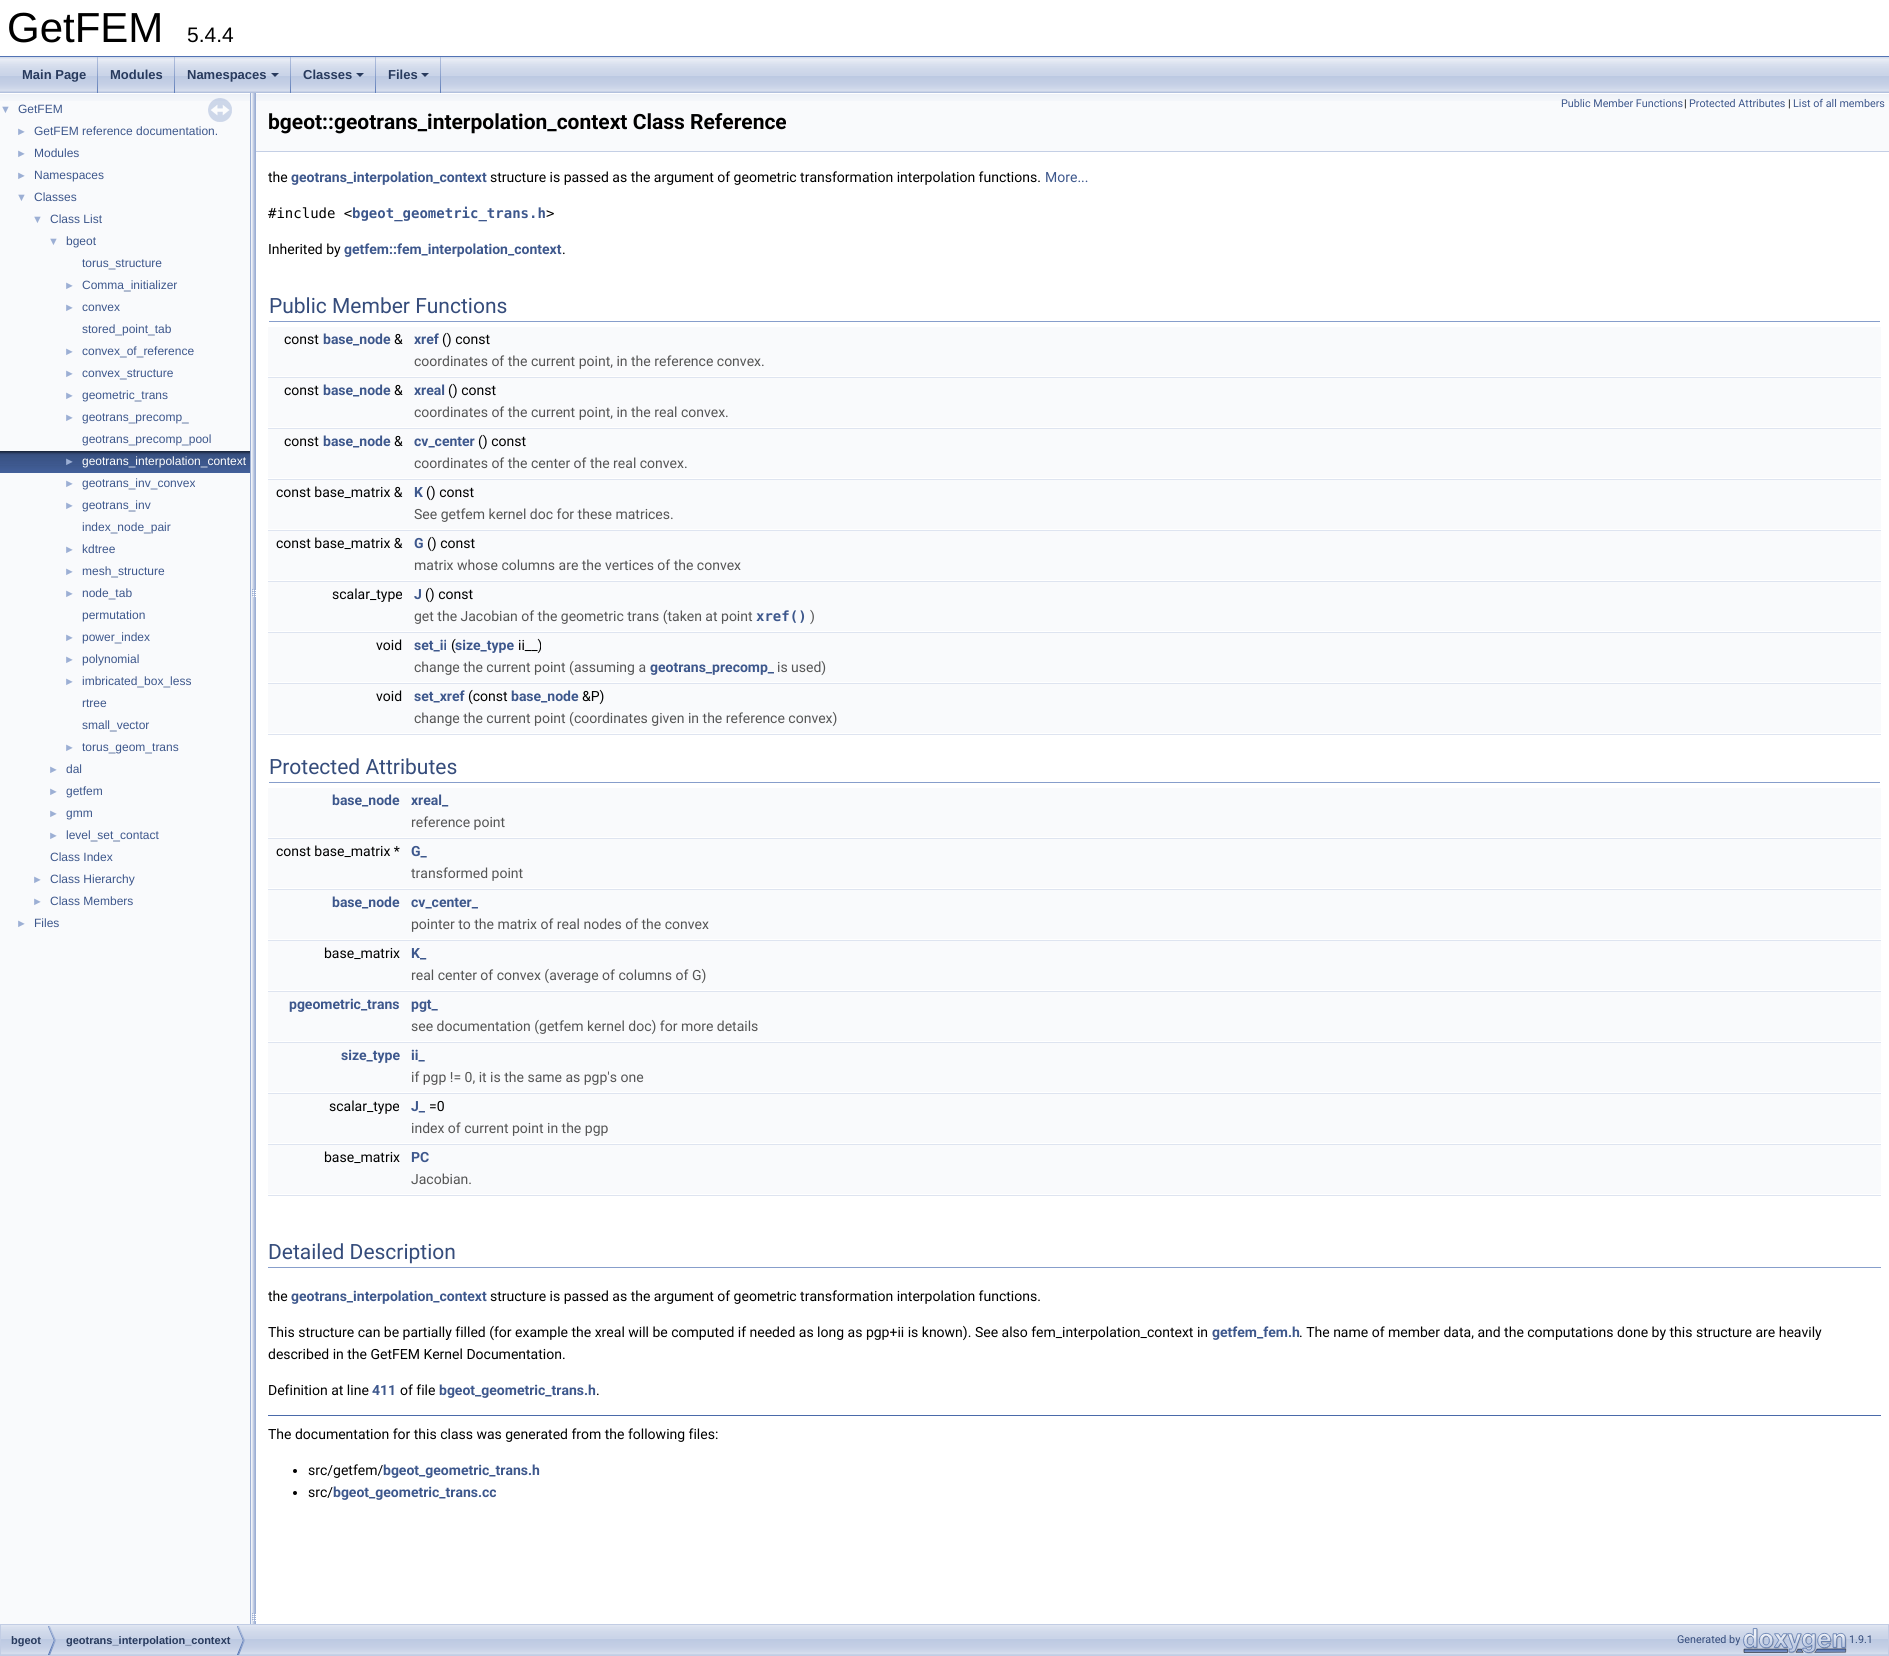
#include <cairo/cairo.h>
#include <math.h>
#include <stddef.h>

static cairo_t *cr;

static void use_color(int r, int g, int b) {
  cairo_set_source_rgb(cr, r / 255.0, g / 255.0, b / 255.0);
}

static void text(double x, double y, const char *s, const char *family, double size, int italic, int bold, int r, int g, int b) {
  cairo_select_font_face(cr, family, italic ? CAIRO_FONT_SLANT_ITALIC : CAIRO_FONT_SLANT_NORMAL,
    bold ? CAIRO_FONT_WEIGHT_BOLD : CAIRO_FONT_WEIGHT_NORMAL);
  cairo_set_font_size(cr, size);
  use_color(r, g, b);
  cairo_move_to(cr, x, y);
  cairo_show_text(cr, s);
}

static void box(double x, double y, double w, double h, int r, int g, int b) {
  use_color(r, g, b);
  cairo_rectangle(cr, x, y, w, h);
  cairo_fill(cr);
}

static void picture(const char *path, double x, double y, double w, double h) {
  cairo_surface_t *image = cairo_image_surface_create_from_png(path);
  cairo_save(cr);
  cairo_set_source_surface(cr, image, x, y);
  cairo_rectangle(cr, x, y, w, h);
  cairo_fill(cr);
  cairo_restore(cr);
  cairo_surface_destroy(image);
}

static void draw(void) {
  use_color(255, 255, 255);
  cairo_paint(cr);
  box(0, 56, 1889, 1, 83, 115, 180);
  picture("img_01.png", 0, 57, 1889, 36);
  picture("img_02.png", 97, 57, 1, 36);
  picture("img_02.png", 174, 57, 1, 36);
  picture("img_02.png", 290, 57, 1, 36);
  use_color(40, 58, 93);
  cairo_new_path(cr);
  cairo_move_to(cr, 271, 73);
  cairo_line_to(cr, 279, 73);
  cairo_line_to(cr, 275, 77);
  cairo_close_path(cr);
  cairo_fill(cr);
  picture("img_02.png", 375, 57, 1, 36);
  cairo_new_path(cr);
  cairo_move_to(cr, 356, 73);
  cairo_line_to(cr, 364, 73);
  cairo_line_to(cr, 360, 77);
  cairo_close_path(cr);
  cairo_fill(cr);
  picture("img_02.png", 440, 57, 1, 36);
  cairo_new_path(cr);
  cairo_move_to(cr, 421, 73);
  cairo_line_to(cr, 429, 73);
  cairo_line_to(cr, 425, 77);
  cairo_close_path(cr);
  cairo_fill(cr);
  box(0, 101, 250, 1523, 249, 250, 252);
  picture("img_03.png", 0, 93, 250, 8);
  picture("img_04.png", 208, 98, 24, 24);
  picture("img_05.png", 0, 451, 250, 22);
  picture("img_06.png", 250, 93, 6, 1531);
  box(256, 101, 1633, 50, 249, 250, 252);
  picture("img_07.png", 256, 93, 1633, 8);
  box(256, 151, 1633, 1, 196, 207, 229);
  box(269, 321, 1611, 1, 135, 158, 203);
  box(268, 327, 1613, 23, 249, 250, 252);
  box(268, 350, 1613, 26, 249, 250, 252);
  box(268, 377, 1613, 1, 222, 228, 240);
  box(268, 378, 1613, 23, 249, 250, 252);
  box(268, 401, 1613, 26, 249, 250, 252);
  box(268, 428, 1613, 1, 222, 228, 240);
  box(268, 429, 1613, 23, 249, 250, 252);
  box(268, 452, 1613, 26, 249, 250, 252);
  box(268, 479, 1613, 1, 222, 228, 240);
  box(268, 480, 1613, 23, 249, 250, 252);
  box(268, 503, 1613, 26, 249, 250, 252);
  box(268, 530, 1613, 1, 222, 228, 240);
  box(268, 531, 1613, 23, 249, 250, 252);
  box(268, 554, 1613, 26, 249, 250, 252);
  box(268, 581, 1613, 1, 222, 228, 240);
  box(268, 582, 1613, 23, 249, 250, 252);
  box(268, 605, 1613, 26, 249, 250, 252);
  box(268, 632, 1613, 1, 222, 228, 240);
  box(268, 633, 1613, 23, 249, 250, 252);
  box(268, 656, 1613, 26, 249, 250, 252);
  box(268, 683, 1613, 1, 222, 228, 240);
  box(268, 684, 1613, 23, 249, 250, 252);
  box(268, 707, 1613, 26, 249, 250, 252);
  box(268, 734, 1613, 1, 222, 228, 240);
  box(269, 782, 1611, 1, 135, 158, 203);
  box(268, 788, 1613, 23, 249, 250, 252);
  box(268, 811, 1613, 26, 249, 250, 252);
  box(268, 838, 1613, 1, 222, 228, 240);
  box(268, 839, 1613, 23, 249, 250, 252);
  box(268, 862, 1613, 26, 249, 250, 252);
  box(268, 889, 1613, 1, 222, 228, 240);
  box(268, 890, 1613, 23, 249, 250, 252);
  box(268, 913, 1613, 26, 249, 250, 252);
  box(268, 940, 1613, 1, 222, 228, 240);
  box(268, 941, 1613, 23, 249, 250, 252);
  box(268, 964, 1613, 26, 249, 250, 252);
  box(268, 991, 1613, 1, 222, 228, 240);
  box(268, 992, 1613, 23, 249, 250, 252);
  box(268, 1015, 1613, 26, 249, 250, 252);
  box(268, 1042, 1613, 1, 222, 228, 240);
  box(268, 1043, 1613, 23, 249, 250, 252);
  box(268, 1066, 1613, 26, 249, 250, 252);
  box(268, 1093, 1613, 1, 222, 228, 240);
  box(268, 1094, 1613, 23, 249, 250, 252);
  box(268, 1117, 1613, 26, 249, 250, 252);
  box(268, 1144, 1613, 1, 222, 228, 240);
  box(268, 1145, 1613, 23, 249, 250, 252);
  box(268, 1168, 1613, 26, 249, 250, 252);
  box(268, 1195, 1613, 1, 222, 228, 240);
  box(268, 1267, 1613, 1, 135, 158, 203);
  box(268, 1415, 1613, 1, 74, 106, 170);
  use_color(0, 0, 0);
  cairo_arc(cr, 295, 1471, 2, 0, 2 * M_PI);
  cairo_fill(cr);
  cairo_arc(cr, 295, 1493, 2, 0, 2 * M_PI);
  cairo_fill(cr);
  picture("img_08.png", 1, 1625, 1887, 30);
  cairo_rectangle(cr, 0.5, 1624.5, 1888, 31);
  use_color(194, 205, 228);
  cairo_set_line_width(cr, 1);
  cairo_stroke(cr);
  picture("img_09.png", 48, 1626, 8, 29);
  picture("img_09.png", 237, 1626, 8, 29);
  picture("img_10.png", 1743, 1628, 104, 26);
  text(7, 42, "GetFEM", "Liberation Sans", 42, 0, 0, 0, 0, 0);
  text(187, 42, "5.4.4", "Liberation Sans", 21, 0, 0, 0, 0, 0);
  text(22, 79, "Main Page", "Liberation Sans", 13, 0, 1, 40, 58, 93);
  text(110, 79, "Modules", "Liberation Sans", 13, 0, 1, 40, 58, 93);
  text(187, 79, "Namespaces", "Liberation Sans", 13, 0, 1, 40, 58, 93);
  text(303, 79, "Classes", "Liberation Sans", 13, 0, 1, 40, 58, 93);
  text(388, 79, "Files", "Liberation Sans", 13, 0, 1, 40, 58, 93);
  text(0, 113, "▼", "Liberation Sans", 11, 0, 0, 156, 175, 212);
  text(18, 113, "GetFEM", "Liberation Sans", 12, 0, 0, 61, 87, 140);
  text(16, 135, "►", "Liberation Sans", 11, 0, 0, 156, 175, 212);
  text(34, 135, "GetFEM reference documentation.", "Liberation Sans", 12, 0, 0, 61, 87, 140);
  text(16, 157, "►", "Liberation Sans", 11, 0, 0, 156, 175, 212);
  text(34, 157, "Modules", "Liberation Sans", 12, 0, 0, 61, 87, 140);
  text(16, 179, "►", "Liberation Sans", 11, 0, 0, 156, 175, 212);
  text(34, 179, "Namespaces", "Liberation Sans", 12, 0, 0, 61, 87, 140);
  text(16, 201, "▼", "Liberation Sans", 11, 0, 0, 156, 175, 212);
  text(34, 201, "Classes", "Liberation Sans", 12, 0, 0, 61, 87, 140);
  text(32, 223, "▼", "Liberation Sans", 11, 0, 0, 156, 175, 212);
  text(50, 223, "Class List", "Liberation Sans", 12, 0, 0, 61, 87, 140);
  text(48, 245, "▼", "Liberation Sans", 11, 0, 0, 156, 175, 212);
  text(66, 245, "bgeot", "Liberation Sans", 12, 0, 0, 61, 87, 140);
  text(82, 267, "torus_structure", "Liberation Sans", 12, 0, 0, 61, 87, 140);
  text(64, 289, "►", "Liberation Sans", 11, 0, 0, 156, 175, 212);
  text(82, 289, "Comma_initializer", "Liberation Sans", 12, 0, 0, 61, 87, 140);
  text(64, 311, "►", "Liberation Sans", 11, 0, 0, 156, 175, 212);
  text(82, 311, "convex", "Liberation Sans", 12, 0, 0, 61, 87, 140);
  text(82, 333, "stored_point_tab", "Liberation Sans", 12, 0, 0, 61, 87, 140);
  text(64, 355, "►", "Liberation Sans", 11, 0, 0, 156, 175, 212);
  text(82, 355, "convex_of_reference", "Liberation Sans", 12, 0, 0, 61, 87, 140);
  text(64, 377, "►", "Liberation Sans", 11, 0, 0, 156, 175, 212);
  text(82, 377, "convex_structure", "Liberation Sans", 12, 0, 0, 61, 87, 140);
  text(64, 399, "►", "Liberation Sans", 11, 0, 0, 156, 175, 212);
  text(82, 399, "geometric_trans", "Liberation Sans", 12, 0, 0, 61, 87, 140);
  text(64, 421, "►", "Liberation Sans", 11, 0, 0, 156, 175, 212);
  text(82, 421, "geotrans_precomp_", "Liberation Sans", 12, 0, 0, 61, 87, 140);
  text(82, 443, "geotrans_precomp_pool", "Liberation Sans", 12, 0, 0, 61, 87, 140);
  text(64, 465, "►", "Liberation Sans", 11, 0, 0, 156, 175, 212);
  text(82, 465, "geotrans_interpolation_context", "Liberation Sans", 12, 0, 0, 255, 255, 255);
  text(64, 487, "►", "Liberation Sans", 11, 0, 0, 156, 175, 212);
  text(82, 487, "geotrans_inv_convex", "Liberation Sans", 12, 0, 0, 61, 87, 140);
  text(64, 509, "►", "Liberation Sans", 11, 0, 0, 156, 175, 212);
  text(82, 509, "geotrans_inv", "Liberation Sans", 12, 0, 0, 61, 87, 140);
  text(82, 531, "index_node_pair", "Liberation Sans", 12, 0, 0, 61, 87, 140);
  text(64, 553, "►", "Liberation Sans", 11, 0, 0, 156, 175, 212);
  text(82, 553, "kdtree", "Liberation Sans", 12, 0, 0, 61, 87, 140);
  text(64, 575, "►", "Liberation Sans", 11, 0, 0, 156, 175, 212);
  text(82, 575, "mesh_structure", "Liberation Sans", 12, 0, 0, 61, 87, 140);
  text(64, 597, "►", "Liberation Sans", 11, 0, 0, 156, 175, 212);
  text(82, 597, "node_tab", "Liberation Sans", 12, 0, 0, 61, 87, 140);
  text(82, 619, "permutation", "Liberation Sans", 12, 0, 0, 61, 87, 140);
  text(64, 641, "►", "Liberation Sans", 11, 0, 0, 156, 175, 212);
  text(82, 641, "power_index", "Liberation Sans", 12, 0, 0, 61, 87, 140);
  text(64, 663, "►", "Liberation Sans", 11, 0, 0, 156, 175, 212);
  text(82, 663, "polynomial", "Liberation Sans", 12, 0, 0, 61, 87, 140);
  text(64, 685, "►", "Liberation Sans", 11, 0, 0, 156, 175, 212);
  text(82, 685, "imbricated_box_less", "Liberation Sans", 12, 0, 0, 61, 87, 140);
  text(82, 707, "rtree", "Liberation Sans", 12, 0, 0, 61, 87, 140);
  text(82, 729, "small_vector", "Liberation Sans", 12, 0, 0, 61, 87, 140);
  text(64, 751, "►", "Liberation Sans", 11, 0, 0, 156, 175, 212);
  text(82, 751, "torus_geom_trans", "Liberation Sans", 12, 0, 0, 61, 87, 140);
  text(48, 773, "►", "Liberation Sans", 11, 0, 0, 156, 175, 212);
  text(66, 773, "dal", "Liberation Sans", 12, 0, 0, 61, 87, 140);
  text(48, 795, "►", "Liberation Sans", 11, 0, 0, 156, 175, 212);
  text(66, 795, "getfem", "Liberation Sans", 12, 0, 0, 61, 87, 140);
  text(48, 817, "►", "Liberation Sans", 11, 0, 0, 156, 175, 212);
  text(66, 817, "gmm", "Liberation Sans", 12, 0, 0, 61, 87, 140);
  text(48, 839, "►", "Liberation Sans", 11, 0, 0, 156, 175, 212);
  text(66, 839, "level_set_contact", "Liberation Sans", 12, 0, 0, 61, 87, 140);
  text(50, 861, "Class Index", "Liberation Sans", 12, 0, 0, 61, 87, 140);
  text(32, 883, "►", "Liberation Sans", 11, 0, 0, 156, 175, 212);
  text(50, 883, "Class Hierarchy", "Liberation Sans", 12, 0, 0, 61, 87, 140);
  text(32, 905, "►", "Liberation Sans", 11, 0, 0, 156, 175, 212);
  text(50, 905, "Class Members", "Liberation Sans", 12, 0, 0, 61, 87, 140);
  text(16, 927, "►", "Liberation Sans", 11, 0, 0, 156, 175, 212);
  text(34, 927, "Files", "Liberation Sans", 12, 0, 0, 61, 87, 140);
  text(1561, 107, "Public Member Functions", "Roboto", 10.75, 0, 0, 61, 87, 140);
  text(1684, 107, "|", "Roboto", 10.75, 0, 0, 0, 0, 0);
  text(1689, 107, "Protected Attributes", "Roboto", 10.75, 0, 0, 61, 87, 140);
  text(1788, 107, "|", "Roboto", 10.75, 0, 0, 0, 0, 0);
  text(1793, 107, "List of all members", "Roboto", 10.75, 0, 0, 61, 87, 140);
  text(268, 129, "bgeot::geotrans_interpolation_context Class Reference", "Roboto", 21, 0, 1, 0, 0, 0);
  text(268, 182, "the", "Roboto", 14, 0, 0, 0, 0, 0);
  text(291, 182, "geotrans_interpolation_context", "Roboto", 14, 0, 1, 61, 87, 140);
  text(490, 182, "structure is passed as the argument of geometric transformation interpolation functions.", "Roboto", 14, 0, 0, 0, 0, 0);
  text(1045, 182, "More...", "Roboto", 14, 0, 0, 61, 87, 140);
  text(268, 218, "#include <", "DejaVu Sans Mono", 14, 0, 0, 0, 0, 0);
  text(352, 218, "bgeot_geometric_trans.h", "DejaVu Sans Mono", 14, 0, 1, 61, 87, 140);
  text(546, 218, ">", "DejaVu Sans Mono", 14, 0, 0, 0, 0, 0);
  text(268, 254, "Inherited by", "Roboto", 14, 0, 0, 0, 0, 0);
  text(344, 254, "getfem::fem_interpolation_context", "Roboto", 14, 0, 1, 61, 87, 140);
  text(562, 254, ".", "Roboto", 14, 0, 0, 0, 0, 0);
  text(269, 313, "Public Member Functions", "Roboto", 21, 0, 0, 53, 76, 123);
  text(284, 344, "const", "Roboto", 14, 0, 0, 0, 0, 0);
  text(323, 344, "base_node", "Roboto", 14, 0, 1, 61, 87, 140);
  text(394, 344, "&", "Roboto", 14, 0, 0, 0, 0, 0);
  text(414, 344, "xref", "Roboto", 14, 0, 1, 61, 87, 140);
  text(442, 344, "() const", "Roboto", 14, 0, 0, 0, 0, 0);
  text(414, 366, "coordinates of the current point, in the reference convex.", "Roboto", 14, 0, 0, 85, 85, 85);
  text(284, 395, "const", "Roboto", 14, 0, 0, 0, 0, 0);
  text(323, 395, "base_node", "Roboto", 14, 0, 1, 61, 87, 140);
  text(394, 395, "&", "Roboto", 14, 0, 0, 0, 0, 0);
  text(414, 395, "xreal", "Roboto", 14, 0, 1, 61, 87, 140);
  text(448, 395, "() const", "Roboto", 14, 0, 0, 0, 0, 0);
  text(414, 417, "coordinates of the current point, in the real convex.", "Roboto", 14, 0, 0, 85, 85, 85);
  text(284, 446, "const", "Roboto", 14, 0, 0, 0, 0, 0);
  text(323, 446, "base_node", "Roboto", 14, 0, 1, 61, 87, 140);
  text(394, 446, "&", "Roboto", 14, 0, 0, 0, 0, 0);
  text(414, 446, "cv_center", "Roboto", 14, 0, 1, 61, 87, 140);
  text(478, 446, "() const", "Roboto", 14, 0, 0, 0, 0, 0);
  text(414, 468, "coordinates of the center of the real convex.", "Roboto", 14, 0, 0, 85, 85, 85);
  text(276, 497, "const base_matrix &", "Roboto", 14, 0, 0, 0, 0, 0);
  text(414, 497, "K", "Roboto", 14, 0, 1, 61, 87, 140);
  text(426, 497, "() const", "Roboto", 14, 0, 0, 0, 0, 0);
  text(414, 519, "See getfem kernel doc for these matrices.", "Roboto", 14, 0, 0, 85, 85, 85);
  text(276, 548, "const base_matrix &", "Roboto", 14, 0, 0, 0, 0, 0);
  text(414, 548, "G", "Roboto", 14, 0, 1, 61, 87, 140);
  text(427, 548, "() const", "Roboto", 14, 0, 0, 0, 0, 0);
  text(414, 570, "matrix whose columns are the vertices of the convex", "Roboto", 14, 0, 0, 85, 85, 85);
  text(332, 599, "scalar_type", "Roboto", 14, 0, 0, 0, 0, 0);
  text(414, 599, "J", "Roboto", 14, 0, 1, 61, 87, 140);
  text(425, 599, "() const", "Roboto", 14, 0, 0, 0, 0, 0);
  text(414, 621, "get the Jacobian of the geometric trans (taken at point", "Roboto", 14, 0, 0, 85, 85, 85);
  text(756, 621, "xref()", "DejaVu Sans Mono", 14, 0, 1, 61, 87, 140);
  text(810, 621, ")", "Roboto", 14, 0, 0, 85, 85, 85);
  text(376, 650, "void", "Roboto", 14, 0, 0, 0, 0, 0);
  text(414, 650, "set_ii", "Roboto", 14, 0, 1, 61, 87, 140);
  text(451, 650, "(", "Roboto", 14, 0, 0, 0, 0, 0);
  text(455, 650, "size_type", "Roboto", 14, 0, 1, 61, 87, 140);
  text(518, 650, "ii__)", "Roboto", 14, 0, 0, 0, 0, 0);
  text(414, 672, "change the current point (assuming a", "Roboto", 14, 0, 0, 85, 85, 85);
  text(650, 672, "geotrans_precomp_", "Roboto", 14, 0, 1, 61, 87, 140);
  text(777, 672, "is used)", "Roboto", 14, 0, 0, 85, 85, 85);
  text(376, 701, "void", "Roboto", 14, 0, 0, 0, 0, 0);
  text(414, 701, "set_xref", "Roboto", 14, 0, 1, 61, 87, 140);
  text(468, 701, "(const", "Roboto", 14, 0, 0, 0, 0, 0);
  text(511, 701, "base_node", "Roboto", 14, 0, 1, 61, 87, 140);
  text(582, 701, "&P)", "Roboto", 14, 0, 0, 0, 0, 0);
  text(414, 723, "change the current point (coordinates given in the reference convex)", "Roboto", 14, 0, 0, 85, 85, 85);
  text(269, 774, "Protected Attributes", "Roboto", 21, 0, 0, 53, 76, 123);
  text(332, 805, "base_node", "Roboto", 14, 0, 1, 61, 87, 140);
  text(411, 805, "xreal_", "Roboto", 14, 0, 1, 61, 87, 140);
  text(411, 827, "reference point", "Roboto", 14, 0, 0, 85, 85, 85);
  text(276, 856, "const base_matrix *", "Roboto", 14, 0, 0, 0, 0, 0);
  text(411, 856, "G_", "Roboto", 14, 0, 1, 61, 87, 140);
  text(411, 878, "transformed point", "Roboto", 14, 0, 0, 85, 85, 85);
  text(332, 907, "base_node", "Roboto", 14, 0, 1, 61, 87, 140);
  text(411, 907, "cv_center_", "Roboto", 14, 0, 1, 61, 87, 140);
  text(411, 929, "pointer to the matrix of real nodes of the convex", "Roboto", 14, 0, 0, 85, 85, 85);
  text(324, 958, "base_matrix", "Roboto", 14, 0, 0, 0, 0, 0);
  text(411, 958, "K_", "Roboto", 14, 0, 1, 61, 87, 140);
  text(411, 980, "real center of convex (average of columns of G)", "Roboto", 14, 0, 0, 85, 85, 85);
  text(289, 1009, "pgeometric_trans", "Roboto", 14, 0, 1, 61, 87, 140);
  text(411, 1009, "pgt_", "Roboto", 14, 0, 1, 61, 87, 140);
  text(411, 1031, "see documentation (getfem kernel doc) for more details", "Roboto", 14, 0, 0, 85, 85, 85);
  text(341, 1060, "size_type", "Roboto", 14, 0, 1, 61, 87, 140);
  text(411, 1060, "ii_", "Roboto", 14, 0, 1, 61, 87, 140);
  text(411, 1082, "if pgp != 0, it is the same as pgp's one", "Roboto", 14, 0, 0, 85, 85, 85);
  text(329, 1111, "scalar_type", "Roboto", 14, 0, 0, 0, 0, 0);
  text(411, 1111, "J_", "Roboto", 14, 0, 1, 61, 87, 140);
  text(429, 1111, "=0", "Roboto", 14, 0, 0, 0, 0, 0);
  text(411, 1133, "index of current point in the pgp", "Roboto", 14, 0, 0, 85, 85, 85);
  text(324, 1162, "base_matrix", "Roboto", 14, 0, 0, 0, 0, 0);
  text(411, 1162, "PC", "Roboto", 14, 0, 1, 61, 87, 140);
  text(411, 1184, "Jacobian.", "Roboto", 14, 0, 0, 85, 85, 85);
  text(268, 1259, "Detailed Description", "Roboto", 21, 0, 0, 53, 76, 123);
  text(268, 1301, "the", "Roboto", 14, 0, 0, 0, 0, 0);
  text(291, 1301, "geotrans_interpolation_context", "Roboto", 14, 0, 1, 61, 87, 140);
  text(490, 1301, "structure is passed as the argument of geometric transformation interpolation functions.", "Roboto", 14, 0, 0, 0, 0, 0);
  text(268, 1337, "This structure can be partially filled (for example the xreal will be computed if needed as long as pgp+ii is known). See also fem_interpolation_context in", "Roboto", 14, 0, 0, 0, 0, 0);
  text(1212, 1337, "getfem_fem.h", "Roboto", 14, 0, 1, 61, 87, 140);
  text(1299, 1337, ". The name of member data, and the computations done by this structure are heavily", "Roboto", 14, 0, 0, 0, 0, 0);
  text(268, 1359, "described in the GetFEM Kernel Documentation.", "Roboto", 14, 0, 0, 0, 0, 0);
  text(268, 1395, "Definition at line", "Roboto", 14, 0, 0, 0, 0, 0);
  text(372, 1395, "411", "Roboto", 14, 0, 1, 61, 87, 140);
  text(400, 1395, "of file", "Roboto", 14, 0, 0, 0, 0, 0);
  text(439, 1395, "bgeot_geometric_trans.h", "Roboto", 14, 0, 1, 61, 87, 140);
  text(596, 1395, ".", "Roboto", 14, 0, 0, 0, 0, 0);
  text(268, 1439, "The documentation for this class was generated from the following files:", "Roboto", 14, 0, 0, 0, 0, 0);
  text(308, 1475, "src/getfem/", "Roboto", 14, 0, 0, 0, 0, 0);
  text(383, 1475, "bgeot_geometric_trans.h", "Roboto", 14, 0, 1, 61, 87, 140);
  text(308, 1497, "src/", "Roboto", 14, 0, 0, 0, 0, 0);
  text(333, 1497, "bgeot_geometric_trans.cc", "Roboto", 14, 0, 1, 61, 87, 140);
  text(11, 1644, "bgeot", "Liberation Sans", 11, 0, 1, 40, 58, 93);
  text(66, 1644, "geotrans_interpolation_context", "Liberation Sans", 11, 0, 1, 40, 58, 93);
  text(1677, 1643, "Generated by", "Roboto", 10.75, 0, 0, 53, 76, 123);
  text(1849, 1643, "1.9.1", "Roboto", 10.75, 0, 0, 53, 76, 123);
}

int main(void) {
  cairo_surface_t *surface = cairo_image_surface_create(CAIRO_FORMAT_RGB24, 1889, 1656);
  cr = cairo_create(surface);
  cairo_font_options_t *options = cairo_font_options_create();
  cairo_font_options_set_hint_metrics(options, CAIRO_HINT_METRICS_OFF);
  cairo_font_options_set_hint_style(options, CAIRO_HINT_STYLE_NONE);
  cairo_set_font_options(cr, options);
  cairo_set_miter_limit(cr, 4);
  draw();
  cairo_surface_write_to_png(surface, "out.png");
  cairo_font_options_destroy(options);
  cairo_destroy(cr);
  cairo_surface_destroy(surface);
  return 0;
}
